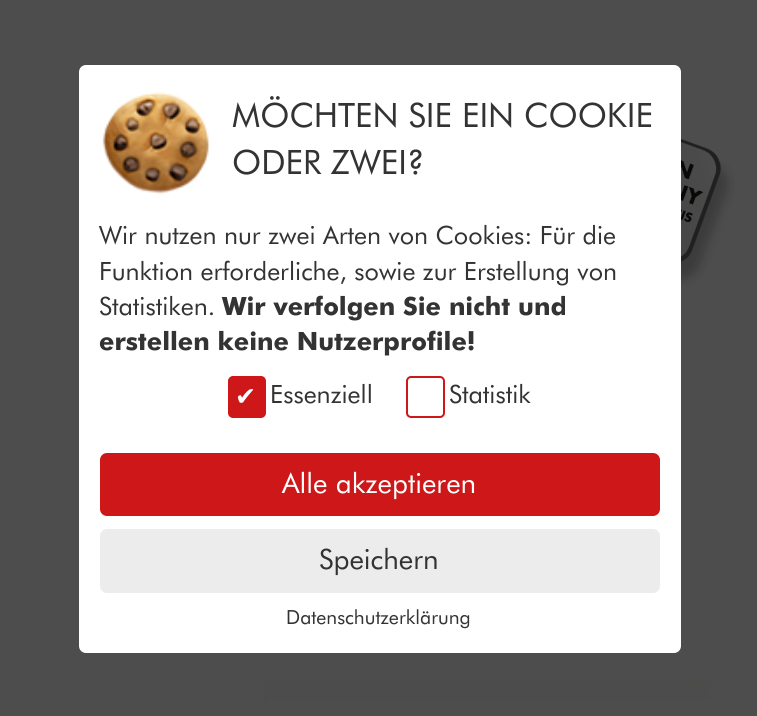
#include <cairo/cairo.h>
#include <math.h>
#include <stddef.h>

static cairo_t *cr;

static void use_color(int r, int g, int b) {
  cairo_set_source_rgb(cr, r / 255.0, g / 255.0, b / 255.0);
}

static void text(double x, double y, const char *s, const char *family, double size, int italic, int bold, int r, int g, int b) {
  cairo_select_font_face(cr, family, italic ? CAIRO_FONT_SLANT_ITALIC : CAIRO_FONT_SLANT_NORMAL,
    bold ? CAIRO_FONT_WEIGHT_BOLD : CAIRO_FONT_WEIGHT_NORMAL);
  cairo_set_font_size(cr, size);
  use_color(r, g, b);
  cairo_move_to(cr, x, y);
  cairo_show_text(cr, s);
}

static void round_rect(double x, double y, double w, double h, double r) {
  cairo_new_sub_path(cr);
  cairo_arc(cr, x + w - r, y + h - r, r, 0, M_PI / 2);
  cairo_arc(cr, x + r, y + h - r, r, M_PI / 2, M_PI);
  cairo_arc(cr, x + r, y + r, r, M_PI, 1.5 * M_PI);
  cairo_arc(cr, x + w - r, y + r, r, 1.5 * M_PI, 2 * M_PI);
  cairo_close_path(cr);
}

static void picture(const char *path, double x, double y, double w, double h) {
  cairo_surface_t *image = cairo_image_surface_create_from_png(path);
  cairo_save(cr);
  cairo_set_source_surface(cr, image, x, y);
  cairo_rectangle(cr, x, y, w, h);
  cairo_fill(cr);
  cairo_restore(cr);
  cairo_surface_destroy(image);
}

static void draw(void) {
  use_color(77, 77, 77);
  cairo_paint(cr);
  use_color(255, 255, 255);
  round_rect(79, 65, 602, 588, 7);
  cairo_fill(cr);
  picture("img_01.png", 102, 92, 108, 103);
  use_color(205, 23, 25);
  round_rect(229, 377, 36, 40, 4);
  cairo_fill_preserve(cr);
  cairo_stroke(cr);
  round_rect(407, 377, 37, 40, 4);
  cairo_stroke(cr);
  round_rect(100, 453, 560, 63, 7);
  cairo_fill(cr);
  use_color(236, 236, 236);
  round_rect(100, 529, 560, 64, 7);
  cairo_fill(cr);
  picture("img_02.png", 681, 139, 54, 147);
  picture("img_03.png", 264, 681, 447, 20);
  text(232, 127, "MÖCHTEN SIE EIN COOKIE", "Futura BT", 33.6, 0, 0, 51, 51, 51);
  text(232, 174, "ODER ZWEI?", "Futura BT", 33.6, 0, 0, 51, 51, 51);
  text(99, 244, "Wir nutzen nur zwei Arten von Cookies: Für die", "Futura BT", 25.2, 0, 0, 51, 51, 51);
  text(99, 280, "Funktion erforderliche, sowie zur Erstellung von", "Futura BT", 25.2, 0, 0, 51, 51, 51);
  text(99, 315, "Statistiken.", "Futura BT", 25.2, 0, 0, 51, 51, 51);
  text(222, 315, "Wir verfolgen Sie nicht und", "Futura BT", 25.2, 0, 1, 51, 51, 51);
  text(99, 350, "erstellen keine Nutzerprofile!", "Futura BT", 25.2, 0, 1, 51, 51, 51);
  text(235, 405, "✔", "DejaVu Sans", 25.2, 0, 0, 255, 255, 255);
  text(270, 403, "Essenziell", "Futura BT", 25.2, 0, 0, 51, 51, 51);
  text(449, 403, "Statistik", "Futura BT", 25.2, 0, 0, 51, 51, 51);
  text(282, 493, "Alle akzeptieren", "Futura BT", 28, 0, 0, 255, 255, 255);
  text(319, 569, "Speichern", "Futura BT", 28, 0, 0, 51, 51, 51);
  text(286, 624, "Datenschutzerklärung", "Futura BT", 19.5, 0, 0, 51, 51, 51);
}

int main(void) {
  cairo_surface_t *surface = cairo_image_surface_create(CAIRO_FORMAT_RGB24, 757, 716);
  cr = cairo_create(surface);
  cairo_font_options_t *options = cairo_font_options_create();
  cairo_font_options_set_hint_metrics(options, CAIRO_HINT_METRICS_OFF);
  cairo_font_options_set_hint_style(options, CAIRO_HINT_STYLE_NONE);
  cairo_set_font_options(cr, options);
  cairo_set_miter_limit(cr, 4);
  draw();
  cairo_surface_write_to_png(surface, "out.png");
  cairo_font_options_destroy(options);
  cairo_destroy(cr);
  cairo_surface_destroy(surface);
  return 0;
}
